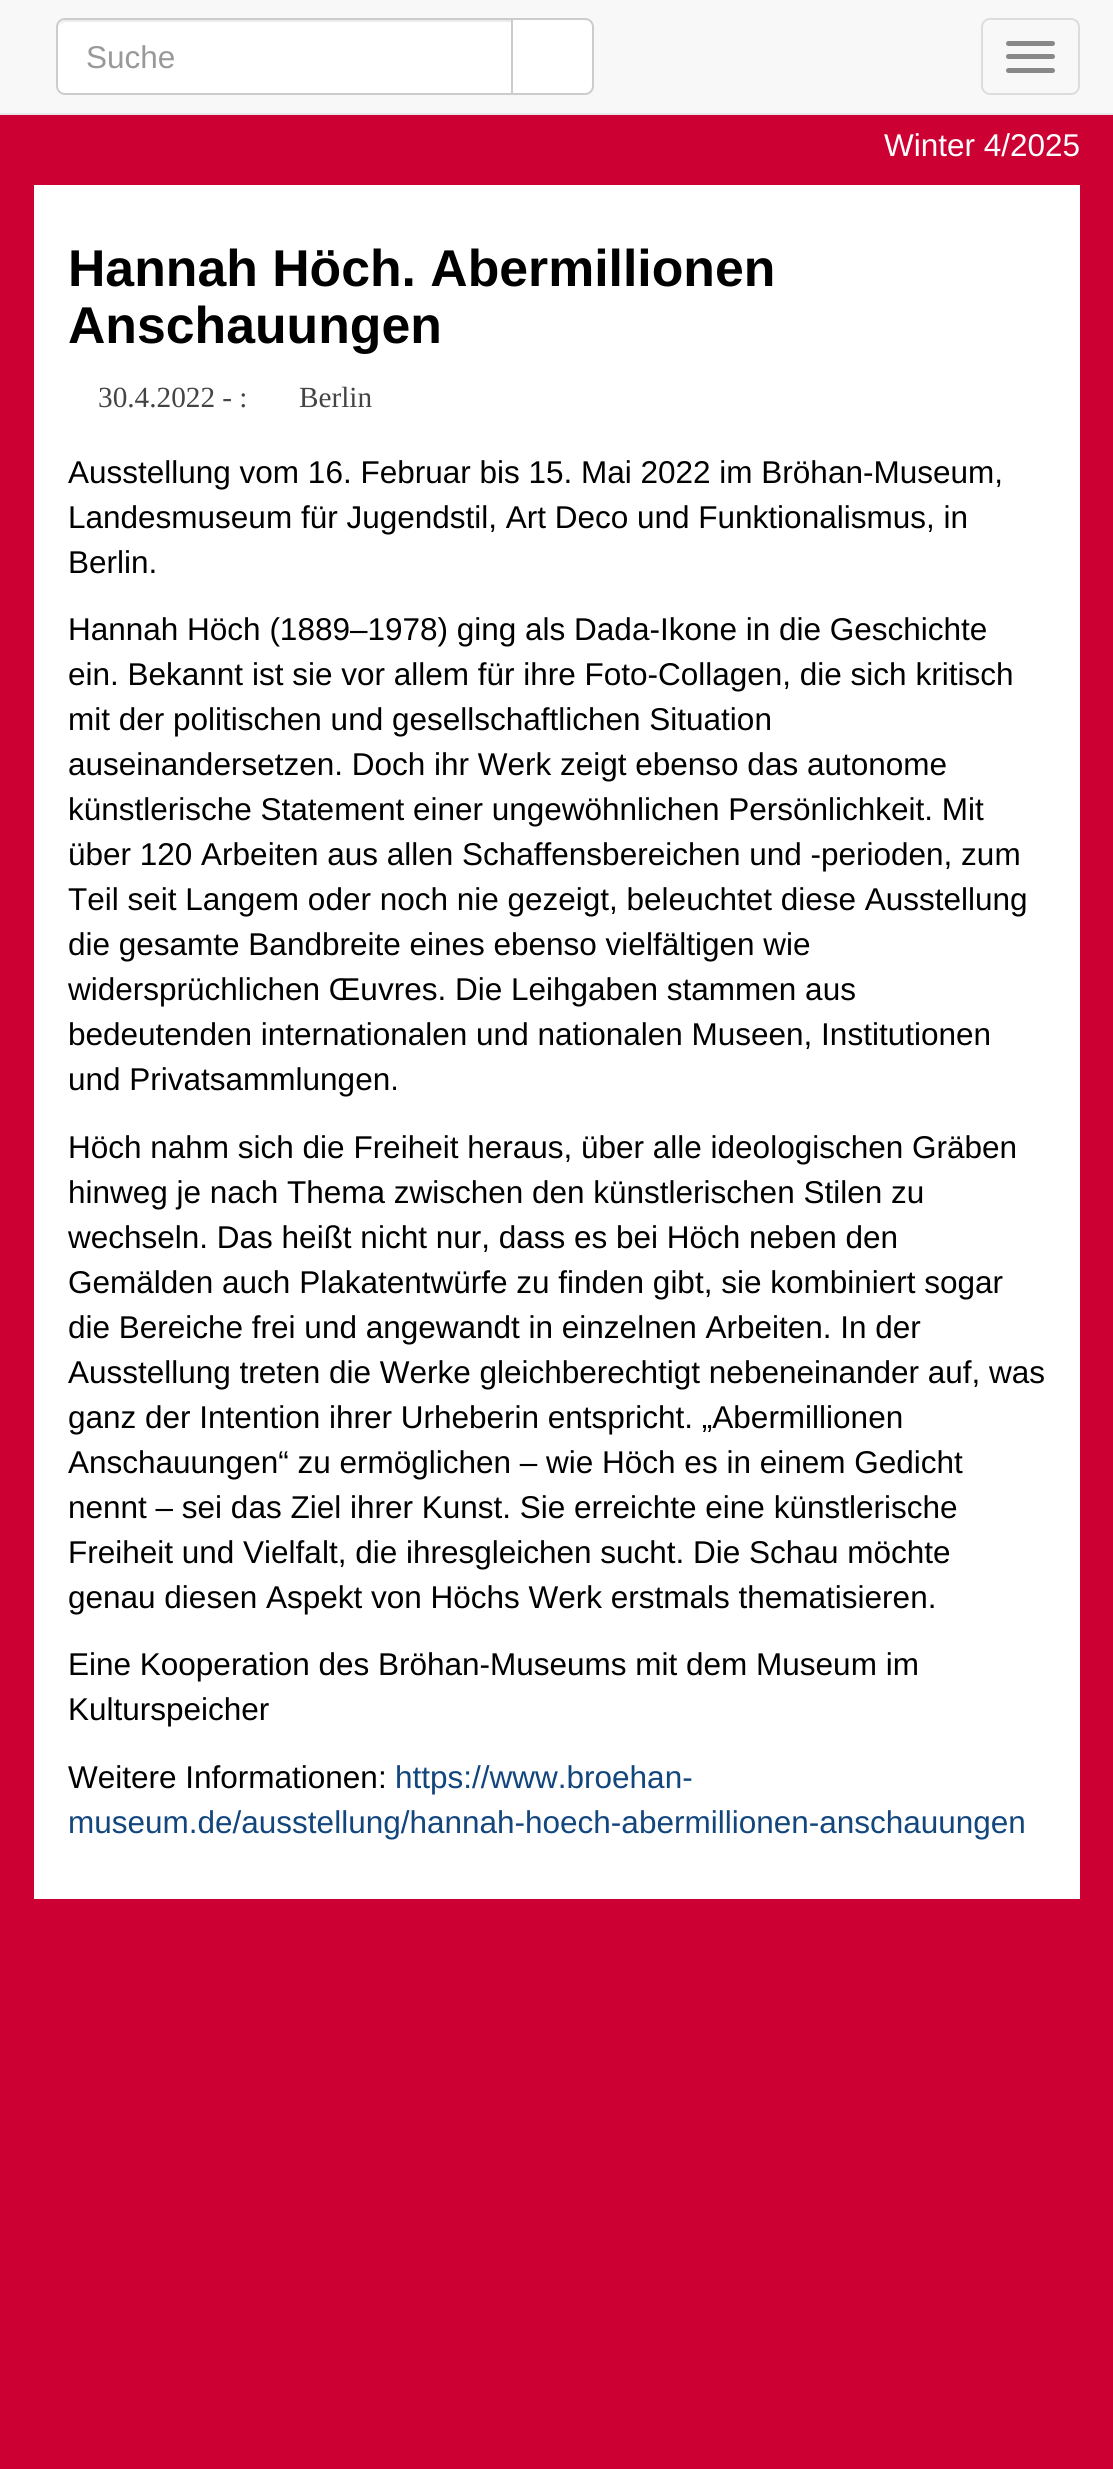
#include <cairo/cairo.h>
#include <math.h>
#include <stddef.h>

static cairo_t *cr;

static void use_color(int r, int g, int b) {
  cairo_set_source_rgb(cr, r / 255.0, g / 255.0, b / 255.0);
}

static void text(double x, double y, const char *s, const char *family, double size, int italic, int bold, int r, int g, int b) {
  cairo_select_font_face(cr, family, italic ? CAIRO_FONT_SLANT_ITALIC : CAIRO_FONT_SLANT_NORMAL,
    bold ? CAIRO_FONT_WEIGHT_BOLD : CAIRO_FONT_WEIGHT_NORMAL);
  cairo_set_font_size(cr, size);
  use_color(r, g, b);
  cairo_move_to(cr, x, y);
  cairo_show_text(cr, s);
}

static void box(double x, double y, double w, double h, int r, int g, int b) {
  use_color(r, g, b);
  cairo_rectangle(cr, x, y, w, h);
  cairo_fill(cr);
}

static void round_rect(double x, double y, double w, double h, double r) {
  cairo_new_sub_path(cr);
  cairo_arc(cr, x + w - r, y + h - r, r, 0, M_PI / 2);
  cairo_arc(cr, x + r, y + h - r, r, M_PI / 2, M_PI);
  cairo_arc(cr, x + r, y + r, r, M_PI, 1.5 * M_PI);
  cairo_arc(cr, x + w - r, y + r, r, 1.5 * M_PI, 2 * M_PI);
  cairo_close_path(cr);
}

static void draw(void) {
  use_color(204, 0, 51);
  cairo_paint(cr);
  box(0, 0, 1113, 113, 248, 248, 248);
  box(0, 113, 1113, 2, 231, 231, 231);
  use_color(255, 255, 255);
  cairo_new_path(cr);
  cairo_move_to(cr, 512, 19);
  cairo_line_to(cr, 585, 19);
  cairo_curve_to(cr, 589.5, 19, 593, 22.5, 593, 27);
  cairo_line_to(cr, 593, 86);
  cairo_curve_to(cr, 593, 90.5, 589.5, 94, 585, 94);
  cairo_line_to(cr, 512, 94);
  cairo_close_path(cr);
  cairo_fill_preserve(cr);
  use_color(204, 204, 204);
  cairo_stroke(cr);
  use_color(255, 255, 255);
  cairo_new_path(cr);
  cairo_move_to(cr, 65, 18);
  cairo_line_to(cr, 513, 18);
  cairo_line_to(cr, 513, 95);
  cairo_line_to(cr, 65, 95);
  cairo_curve_to(cr, 60, 95, 56, 91, 56, 86);
  cairo_line_to(cr, 56, 27);
  cairo_curve_to(cr, 56, 22, 60, 18, 65, 18);
  cairo_close_path(cr);
  cairo_fill(cr);
  use_color(236, 236, 236);
  cairo_new_path(cr);
  cairo_move_to(cr, 65, 22);
  cairo_line_to(cr, 511, 22);
  cairo_line_to(cr, 511, 20);
  cairo_line_to(cr, 66, 20);
  cairo_curve_to(cr, 62, 20, 60, 23, 59, 26);
  cairo_curve_to(cr, 60, 24, 63, 22, 65, 22);
  cairo_close_path(cr);
  cairo_fill(cr);
  cairo_new_path(cr);
  cairo_move_to(cr, 65, 19);
  cairo_line_to(cr, 512, 19);
  cairo_line_to(cr, 512, 94);
  cairo_line_to(cr, 65, 94);
  cairo_curve_to(cr, 60.5, 94, 57, 90.5, 57, 86);
  cairo_line_to(cr, 57, 27);
  cairo_curve_to(cr, 57, 22.5, 60.5, 19, 65, 19);
  cairo_close_path(cr);
  use_color(204, 204, 204);
  cairo_stroke(cr);
  round_rect(982, 19, 97, 75, 8);
  use_color(221, 221, 221);
  cairo_stroke(cr);
  use_color(136, 136, 136);
  round_rect(1006, 41, 49, 5, 2.5);
  cairo_fill(cr);
  round_rect(1006, 54, 49, 5, 2.5);
  cairo_fill(cr);
  round_rect(1006, 68, 49, 5, 2.5);
  cairo_fill(cr);
  box(34, 185, 1046, 1714, 255, 255, 255);
  text(86, 68, "Suche", "Liberation Sans", 31.5, 0, 0, 153, 153, 153);
  text(884, 156, "Winter 4/2025", "Liberation Sans", 31.5, 0, 0, 255, 255, 255);
  text(68, 286, "Hannah Höch. Abermillionen", "Liberation Sans", 51.75, 0, 1, 0, 0, 0);
  text(68, 343, "Anschauungen", "Liberation Sans", 51.75, 0, 1, 0, 0, 0);
  text(98, 407, "30.4.2022 - :", "Liberation Serif", 29.25, 0, 0, 68, 68, 68);
  text(299, 407, "Berlin", "Liberation Serif", 29.25, 0, 0, 68, 68, 68);
  text(68, 483, "Ausstellung vom 16. Februar bis 15. Mai 2022 im Bröhan-Museum,", "Liberation Sans", 31.5, 0, 0, 0, 0, 0);
  text(68, 528, "Landesmuseum für Jugendstil, Art Deco und Funktionalismus, in", "Liberation Sans", 31.5, 0, 0, 0, 0, 0);
  text(68, 573, "Berlin.", "Liberation Sans", 31.5, 0, 0, 0, 0, 0);
  text(68, 640, "Hannah Höch (1889–1978) ging als Dada-Ikone in die Geschichte", "Liberation Sans", 31.5, 0, 0, 0, 0, 0);
  text(68, 685, "ein. Bekannt ist sie vor allem für ihre Foto-Collagen, die sich kritisch", "Liberation Sans", 31.5, 0, 0, 0, 0, 0);
  text(68, 730, "mit der politischen und gesellschaftlichen Situation", "Liberation Sans", 31.5, 0, 0, 0, 0, 0);
  text(68, 775, "auseinandersetzen. Doch ihr Werk zeigt ebenso das autonome", "Liberation Sans", 31.5, 0, 0, 0, 0, 0);
  text(68, 820, "künstlerische Statement einer ungewöhnlichen Persönlichkeit. Mit", "Liberation Sans", 31.5, 0, 0, 0, 0, 0);
  text(68, 865, "über 120 Arbeiten aus allen Schaffensbereichen und -perioden, zum", "Liberation Sans", 31.5, 0, 0, 0, 0, 0);
  text(68, 910, "Teil seit Langem oder noch nie gezeigt, beleuchtet diese Ausstellung", "Liberation Sans", 31.5, 0, 0, 0, 0, 0);
  text(68, 955, "die gesamte Bandbreite eines ebenso vielfältigen wie", "Liberation Sans", 31.5, 0, 0, 0, 0, 0);
  text(68, 1000, "widersprüchlichen Œuvres. Die Leihgaben stammen aus", "Liberation Sans", 31.5, 0, 0, 0, 0, 0);
  text(68, 1045, "bedeutenden internationalen und nationalen Museen, Institutionen", "Liberation Sans", 31.5, 0, 0, 0, 0, 0);
  text(68, 1090, "und Privatsammlungen.", "Liberation Sans", 31.5, 0, 0, 0, 0, 0);
  text(68, 1158, "Höch nahm sich die Freiheit heraus, über alle ideologischen Gräben", "Liberation Sans", 31.5, 0, 0, 0, 0, 0);
  text(68, 1203, "hinweg je nach Thema zwischen den künstlerischen Stilen zu", "Liberation Sans", 31.5, 0, 0, 0, 0, 0);
  text(68, 1248, "wechseln. Das heißt nicht nur, dass es bei Höch neben den", "Liberation Sans", 31.5, 0, 0, 0, 0, 0);
  text(68, 1293, "Gemälden auch Plakatentwürfe zu finden gibt, sie kombiniert sogar", "Liberation Sans", 31.5, 0, 0, 0, 0, 0);
  text(68, 1338, "die Bereiche frei und angewandt in einzelnen Arbeiten. In der", "Liberation Sans", 31.5, 0, 0, 0, 0, 0);
  text(68, 1383, "Ausstellung treten die Werke gleichberechtigt nebeneinander auf, was", "Liberation Sans", 31.5, 0, 0, 0, 0, 0);
  text(68, 1428, "ganz der Intention ihrer Urheberin entspricht. „Abermillionen", "Liberation Sans", 31.5, 0, 0, 0, 0, 0);
  text(68, 1473, "Anschauungen“ zu ermöglichen – wie Höch es in einem Gedicht", "Liberation Sans", 31.5, 0, 0, 0, 0, 0);
  text(68, 1518, "nennt – sei das Ziel ihrer Kunst. Sie erreichte eine künstlerische", "Liberation Sans", 31.5, 0, 0, 0, 0, 0);
  text(68, 1563, "Freiheit und Vielfalt, die ihresgleichen sucht. Die Schau möchte", "Liberation Sans", 31.5, 0, 0, 0, 0, 0);
  text(68, 1608, "genau diesen Aspekt von Höchs Werk erstmals thematisieren.", "Liberation Sans", 31.5, 0, 0, 0, 0, 0);
  text(68, 1675, "Eine Kooperation des Bröhan-Museums mit dem Museum im", "Liberation Sans", 31.5, 0, 0, 0, 0, 0);
  text(68, 1720, "Kulturspeicher", "Liberation Sans", 31.5, 0, 0, 0, 0, 0);
  text(68, 1788, "Weitere Informationen:", "Liberation Sans", 31.5, 0, 0, 0, 0, 0);
  text(395, 1788, "https://www.broehan-", "Liberation Sans", 31.5, 0, 0, 18, 70, 125);
  text(68, 1833, "museum.de/ausstellung/hannah-hoech-abermillionen-anschauungen", "Liberation Sans", 31.5, 0, 0, 18, 70, 125);
}

int main(void) {
  cairo_surface_t *surface = cairo_image_surface_create(CAIRO_FORMAT_RGB24, 1113, 2469);
  cr = cairo_create(surface);
  cairo_font_options_t *options = cairo_font_options_create();
  cairo_font_options_set_hint_metrics(options, CAIRO_HINT_METRICS_OFF);
  cairo_font_options_set_hint_style(options, CAIRO_HINT_STYLE_NONE);
  cairo_set_font_options(cr, options);
  cairo_set_miter_limit(cr, 4);
  draw();
  cairo_surface_write_to_png(surface, "out.png");
  cairo_font_options_destroy(options);
  cairo_destroy(cr);
  cairo_surface_destroy(surface);
  return 0;
}
